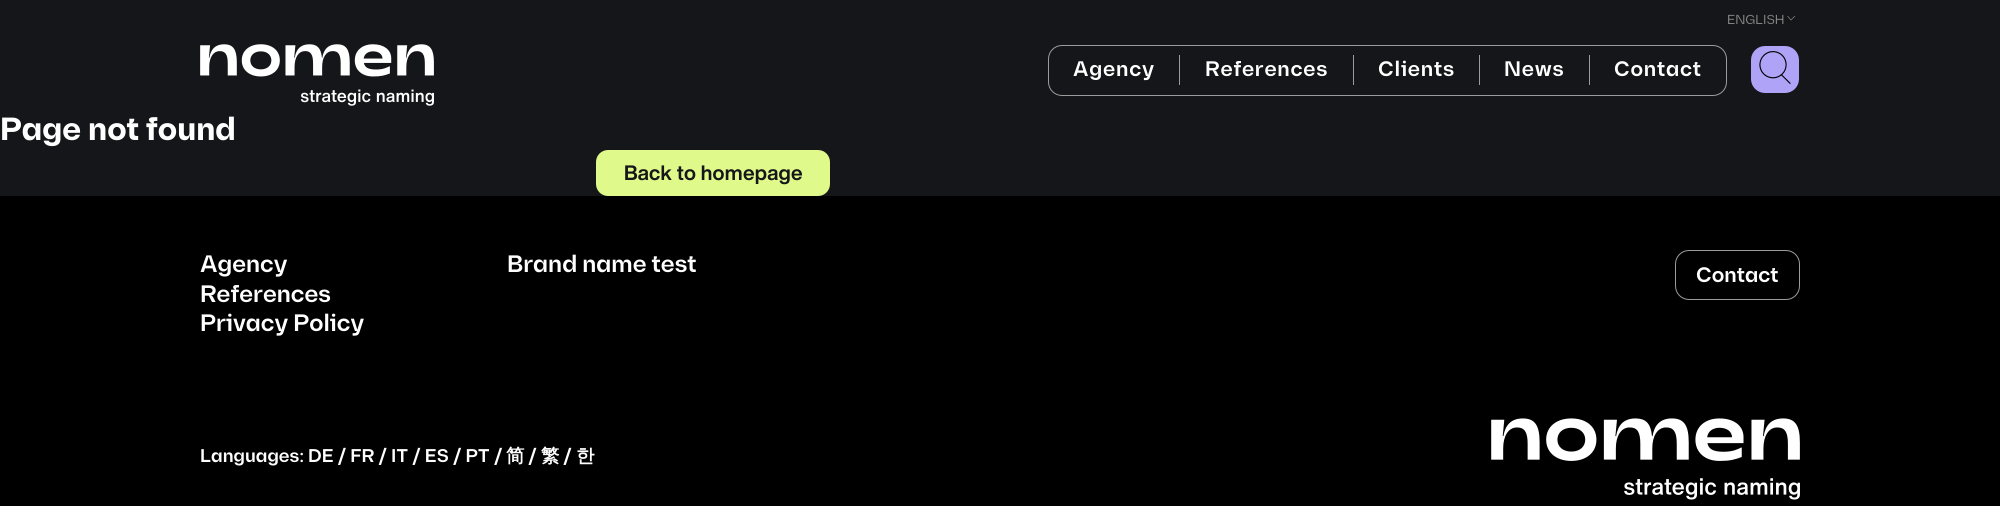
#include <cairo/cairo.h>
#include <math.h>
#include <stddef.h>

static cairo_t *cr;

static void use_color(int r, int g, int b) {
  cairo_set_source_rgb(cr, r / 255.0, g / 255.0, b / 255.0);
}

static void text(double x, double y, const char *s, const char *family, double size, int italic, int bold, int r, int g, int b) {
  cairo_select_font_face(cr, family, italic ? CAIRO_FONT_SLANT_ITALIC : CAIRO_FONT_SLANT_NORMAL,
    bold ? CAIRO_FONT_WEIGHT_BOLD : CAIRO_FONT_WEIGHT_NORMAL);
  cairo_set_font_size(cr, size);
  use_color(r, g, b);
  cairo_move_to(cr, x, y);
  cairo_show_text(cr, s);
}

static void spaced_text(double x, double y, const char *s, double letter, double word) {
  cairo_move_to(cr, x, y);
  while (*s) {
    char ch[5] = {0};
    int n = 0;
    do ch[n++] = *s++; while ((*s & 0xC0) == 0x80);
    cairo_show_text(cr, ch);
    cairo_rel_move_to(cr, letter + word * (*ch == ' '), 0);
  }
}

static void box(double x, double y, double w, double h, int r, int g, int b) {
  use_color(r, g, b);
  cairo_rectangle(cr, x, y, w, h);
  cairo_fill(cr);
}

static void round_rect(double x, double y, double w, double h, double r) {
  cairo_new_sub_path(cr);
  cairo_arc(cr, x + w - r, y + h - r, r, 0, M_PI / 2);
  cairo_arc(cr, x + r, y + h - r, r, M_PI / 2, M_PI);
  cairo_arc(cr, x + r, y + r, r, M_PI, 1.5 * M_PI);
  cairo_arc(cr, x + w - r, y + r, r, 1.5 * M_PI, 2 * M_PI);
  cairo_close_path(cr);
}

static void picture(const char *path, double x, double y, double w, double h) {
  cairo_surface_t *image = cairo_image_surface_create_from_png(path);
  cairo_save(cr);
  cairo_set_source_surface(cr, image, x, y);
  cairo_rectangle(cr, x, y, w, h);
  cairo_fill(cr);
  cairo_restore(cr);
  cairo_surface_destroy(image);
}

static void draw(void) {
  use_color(21, 22, 25);
  cairo_paint(cr);
  picture("img_01.png", 200, 44, 234, 62);
  cairo_new_path(cr);
  cairo_move_to(cr, 1795, 16);
  cairo_line_to(cr, 1791, 20);
  cairo_line_to(cr, 1787.5, 16);
  use_color(133, 133, 133);
  cairo_set_line_width(cr, 0.7);
  cairo_stroke(cr);
  round_rect(1048.5, 45.5, 678, 50, 13.5);
  use_color(156, 156, 156);
  cairo_set_line_width(cr, 1);
  cairo_stroke(cr);
  box(1179, 55, 1, 30, 156, 156, 156);
  box(1353, 55, 1, 30, 156, 156, 156);
  box(1479, 55, 1, 30, 156, 156, 156);
  box(1589, 55, 1, 30, 156, 156, 156);
  use_color(175, 163, 247);
  round_rect(1751, 46, 48, 47, 14);
  cairo_fill(cr);
  picture("img_02.png", 1759, 51, 32, 33);
  use_color(224, 249, 139);
  round_rect(596, 150, 234, 46, 12);
  cairo_fill(cr);
  box(0, 196, 2000, 310, 0, 0, 0);
  round_rect(1675.5, 250.5, 124, 49, 13.5);
  use_color(156, 156, 156);
  cairo_stroke(cr);
  picture("img_03.png", 1491, 418, 309, 82);
  text(1727, 24, "ENGLISH", "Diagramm", 13, 0, 0, 133, 133, 133);
  cairo_select_font_face(cr, "Diagramm SemiBold", CAIRO_FONT_SLANT_NORMAL, CAIRO_FONT_WEIGHT_NORMAL);
  cairo_set_font_size(cr, 21);
  use_color(255, 255, 255);
  spaced_text(1073, 76, "Agency", 0.75, 0);
  spaced_text(1205, 76, "References", 0.75, 0);
  spaced_text(1378, 76, "Clients", 0.75, 0);
  spaced_text(1504, 76, "News", 0.75, 0);
  spaced_text(1614, 76, "Contact", 0.75, 0);
  text(0, 140, "Page not found", "Diagramm", 32, 0, 1, 255, 255, 255);
  cairo_select_font_face(cr, "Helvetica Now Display", CAIRO_FONT_SLANT_NORMAL, CAIRO_FONT_WEIGHT_BOLD);
  cairo_set_font_size(cr, 20.5);
  use_color(21, 22, 25);
  spaced_text(624, 180, "Back to homepage", 0.25, 0);
  text(200, 272, "Agency", "Diagramm SemiBold", 23.75, 0, 0, 255, 255, 255);
  text(507, 272, "Brand name test", "Diagramm SemiBold", 23.75, 0, 0, 255, 255, 255);
  text(200, 302, "References", "Diagramm SemiBold", 23.75, 0, 0, 255, 255, 255);
  text(200, 331, "Privacy Policy", "Diagramm SemiBold", 23.75, 0, 0, 255, 255, 255);
  text(1696, 282, "Contact", "Diagramm SemiBold", 21, 0, 0, 255, 255, 255);
  text(200, 462, "Languages: DE / FR / IT / ES / PT /", "Diagramm SemiBold", 18.4, 0, 0, 255, 255, 255);
  text(506, 462, "简", "WenQuanYi Zen Hei", 18.4, 0, 1, 255, 255, 255);
  text(528, 462, "/", "Diagramm SemiBold", 18.4, 0, 0, 255, 255, 255);
  text(541, 462, "繁", "WenQuanYi Zen Hei", 18.4, 0, 1, 255, 255, 255);
  text(563, 462, "/", "Diagramm SemiBold", 18.4, 0, 0, 255, 255, 255);
  text(576, 462, "한", "WenQuanYi Zen Hei", 18.4, 0, 1, 255, 255, 255);
}

int main(void) {
  cairo_surface_t *surface = cairo_image_surface_create(CAIRO_FORMAT_RGB24, 2000, 506);
  cr = cairo_create(surface);
  cairo_font_options_t *options = cairo_font_options_create();
  cairo_font_options_set_hint_metrics(options, CAIRO_HINT_METRICS_OFF);
  cairo_font_options_set_hint_style(options, CAIRO_HINT_STYLE_NONE);
  cairo_set_font_options(cr, options);
  cairo_set_miter_limit(cr, 4);
  draw();
  cairo_surface_write_to_png(surface, "out.png");
  cairo_font_options_destroy(options);
  cairo_destroy(cr);
  cairo_surface_destroy(surface);
  return 0;
}
